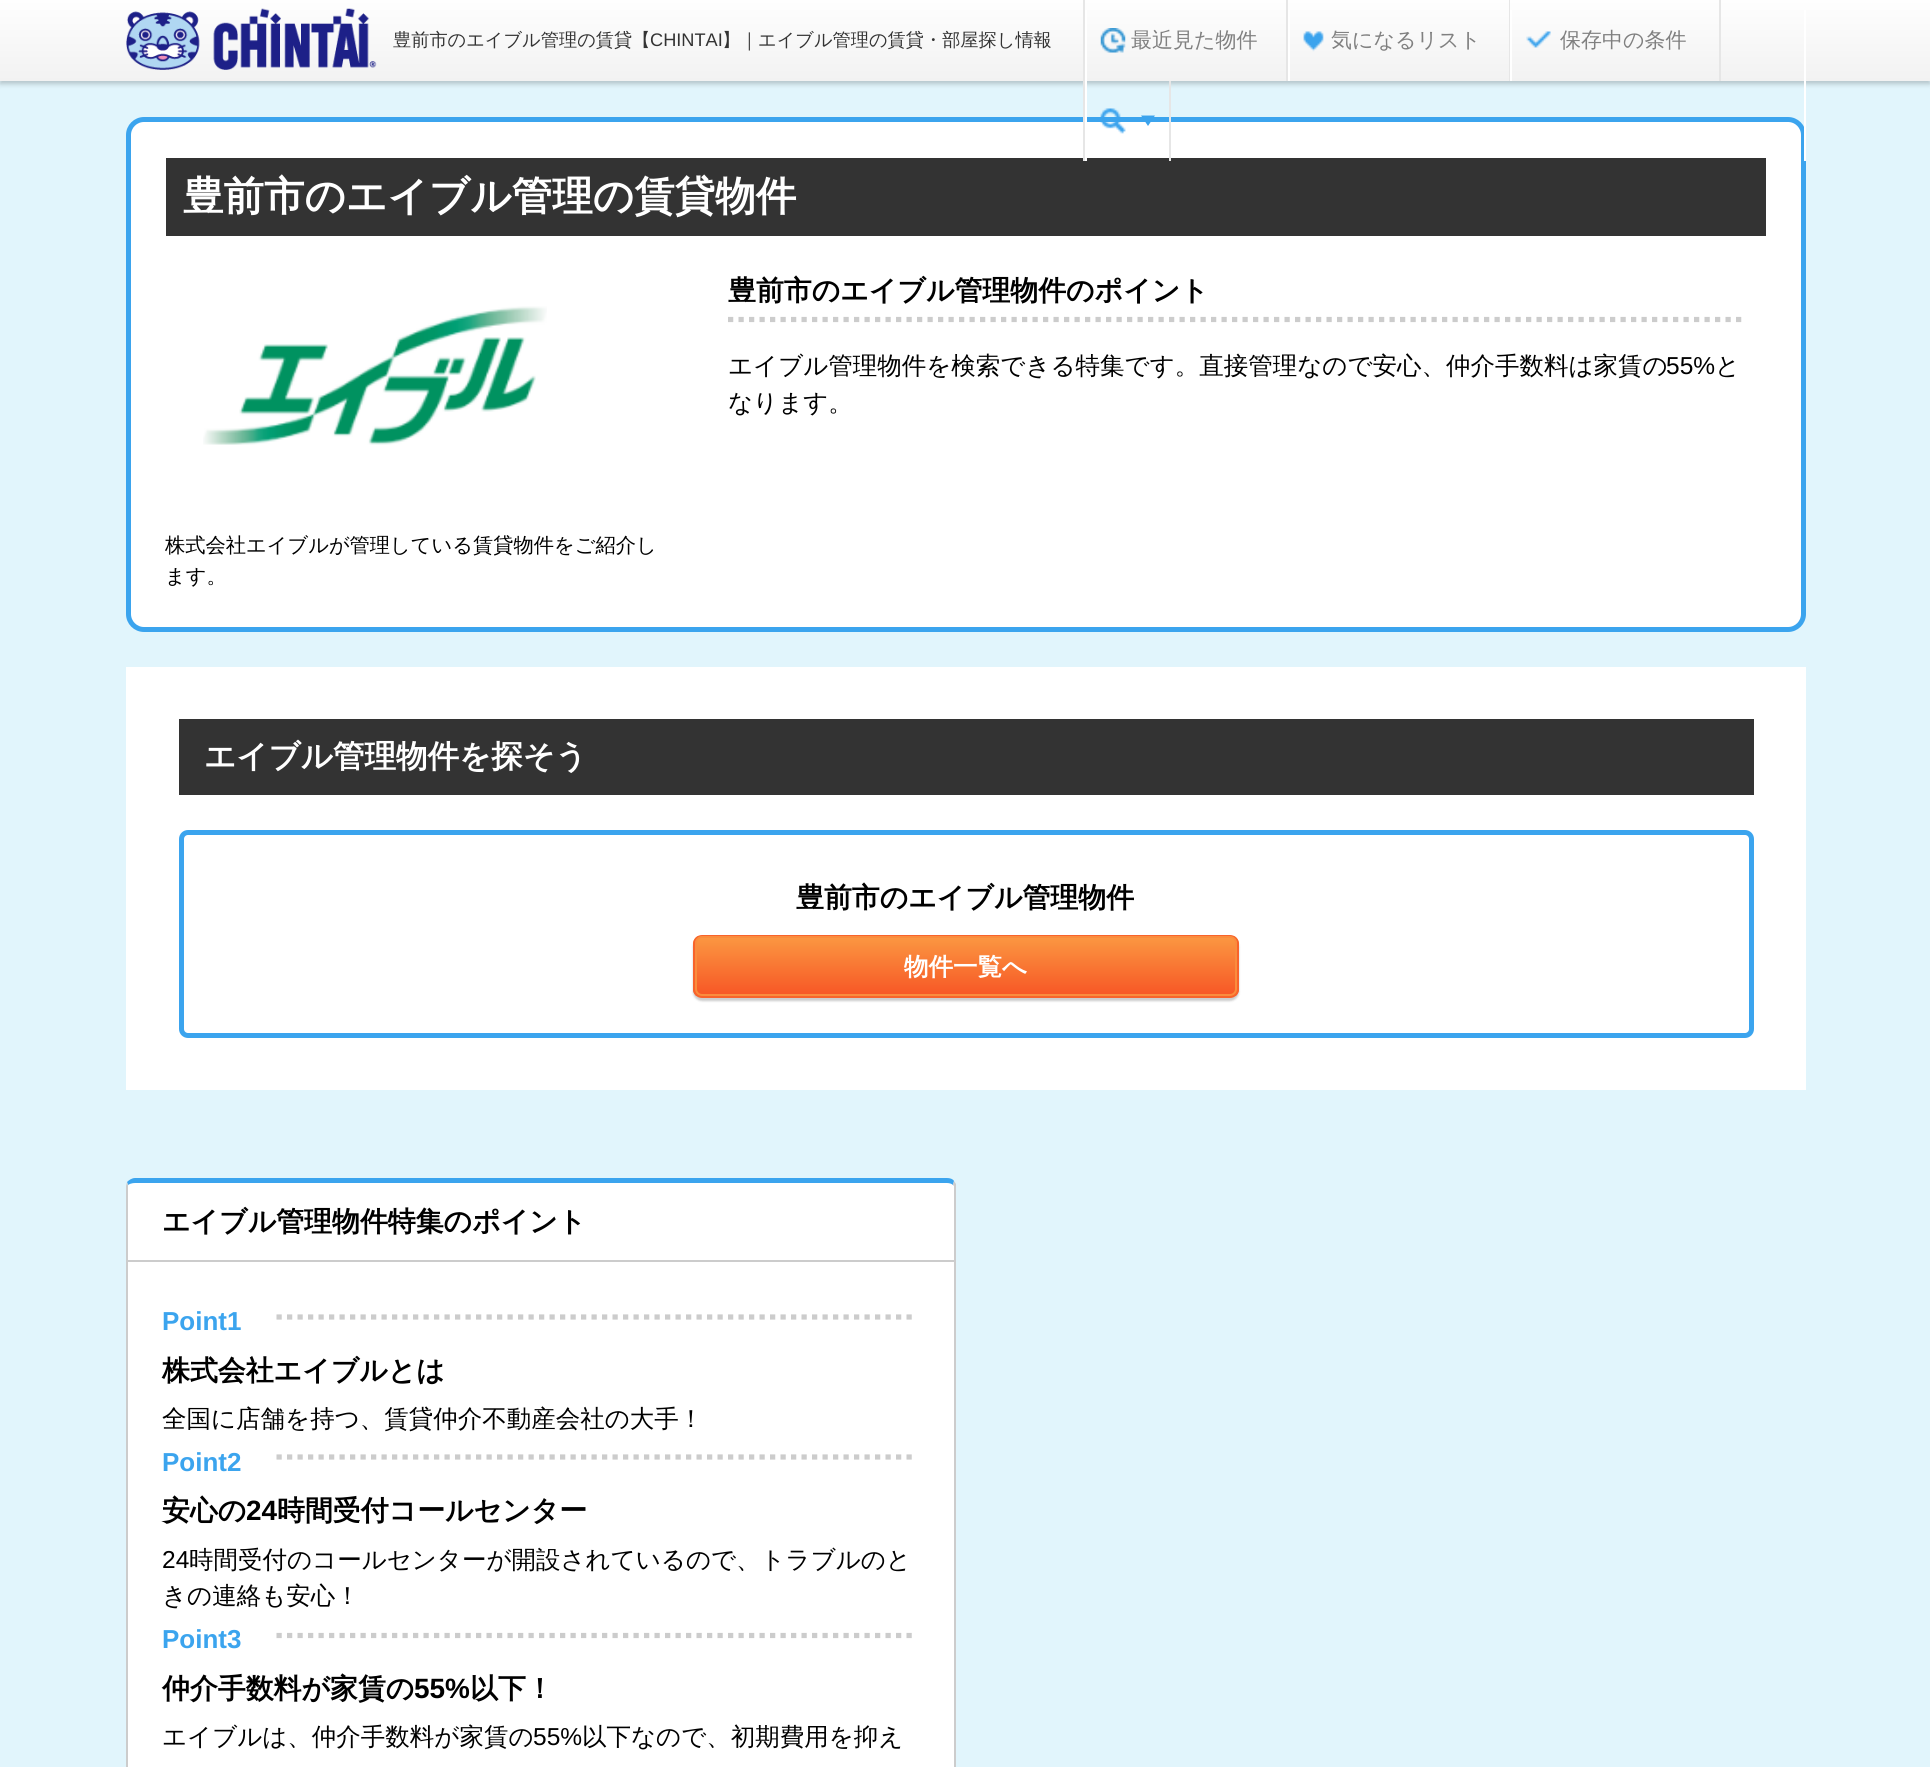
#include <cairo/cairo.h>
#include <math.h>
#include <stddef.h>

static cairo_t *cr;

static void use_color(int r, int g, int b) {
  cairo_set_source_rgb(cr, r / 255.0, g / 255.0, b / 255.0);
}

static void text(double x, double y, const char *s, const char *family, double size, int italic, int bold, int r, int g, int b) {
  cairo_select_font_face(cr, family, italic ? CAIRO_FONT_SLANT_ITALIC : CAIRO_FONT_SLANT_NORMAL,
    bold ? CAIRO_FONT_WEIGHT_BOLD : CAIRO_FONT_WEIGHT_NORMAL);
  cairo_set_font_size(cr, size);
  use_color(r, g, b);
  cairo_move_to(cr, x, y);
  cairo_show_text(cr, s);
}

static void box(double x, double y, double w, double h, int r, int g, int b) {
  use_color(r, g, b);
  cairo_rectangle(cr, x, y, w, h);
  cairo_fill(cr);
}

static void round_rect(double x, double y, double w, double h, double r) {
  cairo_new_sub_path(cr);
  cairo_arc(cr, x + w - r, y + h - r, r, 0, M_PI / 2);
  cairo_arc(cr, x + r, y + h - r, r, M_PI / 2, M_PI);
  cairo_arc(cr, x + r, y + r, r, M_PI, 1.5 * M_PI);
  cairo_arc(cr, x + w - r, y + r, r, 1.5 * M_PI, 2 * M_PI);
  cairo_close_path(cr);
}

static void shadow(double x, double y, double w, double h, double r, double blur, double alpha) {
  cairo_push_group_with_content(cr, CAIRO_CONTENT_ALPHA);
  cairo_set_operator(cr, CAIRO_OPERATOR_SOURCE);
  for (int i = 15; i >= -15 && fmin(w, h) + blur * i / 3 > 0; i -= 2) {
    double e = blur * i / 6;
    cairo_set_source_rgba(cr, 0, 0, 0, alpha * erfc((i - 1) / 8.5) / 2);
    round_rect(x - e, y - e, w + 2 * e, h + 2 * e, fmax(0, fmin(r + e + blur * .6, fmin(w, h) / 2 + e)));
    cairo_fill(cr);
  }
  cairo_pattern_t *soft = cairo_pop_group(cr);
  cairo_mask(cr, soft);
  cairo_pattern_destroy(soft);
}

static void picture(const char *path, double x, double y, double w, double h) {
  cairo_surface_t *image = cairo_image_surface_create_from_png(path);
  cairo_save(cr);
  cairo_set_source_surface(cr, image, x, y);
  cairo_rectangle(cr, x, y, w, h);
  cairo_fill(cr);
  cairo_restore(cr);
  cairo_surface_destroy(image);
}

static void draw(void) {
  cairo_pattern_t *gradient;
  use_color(225, 245, 252);
  cairo_paint(cr);
  use_color(0, 0, 0);
  shadow(0, 4, 1930, 80, 0, 2.5, 0.2);
  gradient = cairo_pattern_create_linear(965, 0, 965, 81);
  cairo_pattern_add_color_stop_rgba(gradient, 0, 0.996, 0.996, 0.996, 1);
  cairo_pattern_add_color_stop_rgba(gradient, 1, 0.949, 0.949, 0.949, 1);
  cairo_set_source(cr, gradient);
  cairo_pattern_destroy(gradient);
  cairo_rectangle(cr, 0, 0, 1930, 81);
  cairo_fill(cr);
  picture("img_01.png", 126, 8, 251, 62);
  use_color(255, 255, 255);
  round_rect(128.5, 119.5, 1675, 510, 15.5);
  cairo_fill_preserve(cr);
  use_color(59, 164, 238);
  cairo_set_line_width(cr, 5);
  cairo_stroke(cr);
  box(1804, 10, 2, 151, 255, 255, 255);
  box(166, 158, 1600, 78, 51, 51, 51);
  box(1083, 0, 2, 161, 230, 230, 230);
  box(1286, 0, 2, 81, 230, 230, 230);
  box(1085, 10, 2, 151, 255, 255, 255);
  picture("img_02.png", 1100, 28, 26, 25);
  box(1509, 0, 1, 81, 230, 230, 230);
  box(1288, 10, 2, 71, 255, 255, 255);
  picture("img_03.png", 1303, 31, 21, 21);
  box(1719, 0, 2, 81, 230, 230, 230);
  box(1510, 10, 2, 71, 255, 255, 255);
  picture("img_04.png", 1526, 31, 25, 17);
  box(1169, 81, 2, 80, 230, 230, 230);
  picture("img_05.png", 1100, 108, 26, 26);
  use_color(59, 163, 237);
  cairo_new_path(cr);
  cairo_move_to(cr, 1141, 115.5);
  cairo_line_to(cr, 1155, 115.5);
  cairo_line_to(cr, 1148, 126);
  cairo_close_path(cr);
  cairo_fill(cr);
  cairo_new_path(cr);
  cairo_move_to(cr, 728, 319.5);
  cairo_line_to(cr, 1743, 319.5);
  use_color(204, 204, 204);
  cairo_set_line_width(cr, 5.2);
  cairo_set_dash(cr, (double[]){5.25, 5.25}, 2, 0);
  cairo_stroke(cr);
  picture("img_06.png", 203, 306, 344, 139);
  box(126, 667, 1680, 423, 255, 255, 255);
  box(179, 719, 1575, 76, 51, 51, 51);
  round_rect(181.5, 832.5, 1570, 203, 6.5);
  use_color(59, 164, 238);
  cairo_set_line_width(cr, 5);
  cairo_set_dash(cr, NULL, 0, 0);
  cairo_stroke(cr);
  use_color(0, 0, 0);
  shadow(693, 938, 546, 63, 9, 1, 0.2);
  cairo_save(cr);
  round_rect(693, 935, 546, 63, 9);
  cairo_clip(cr);
  gradient = cairo_pattern_create_linear(966, 936, 966, 996);
  cairo_pattern_add_color_stop_rgba(gradient, 0, 0.984, 0.596, 0.259, 1);
  cairo_pattern_add_color_stop_rgba(gradient, 1, 0.969, 0.337, 0.145, 1);
  cairo_set_source(cr, gradient);
  cairo_pattern_destroy(gradient);
  cairo_rectangle(cr, 693, 936, 546, 60);
  cairo_fill(cr);
  cairo_restore(cr);
  round_rect(694, 936, 544, 61, 8);
  use_color(248, 99, 43);
  cairo_set_line_width(cr, 2);
  cairo_stroke(cr);
  round_rect(696, 937, 540, 58, 6);
  use_color(250, 140, 61);
  cairo_stroke(cr);
  use_color(255, 255, 255);
  cairo_new_path(cr);
  cairo_move_to(cr, 135, 1183);
  cairo_line_to(cr, 947, 1183);
  cairo_curve_to(cr, 951, 1183, 954, 1185, 954, 1186);
  cairo_line_to(cr, 954, 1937);
  cairo_curve_to(cr, 954, 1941, 951, 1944, 947, 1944);
  cairo_line_to(cr, 135, 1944);
  cairo_curve_to(cr, 131, 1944, 128, 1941, 128, 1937);
  cairo_line_to(cr, 128, 1186);
  cairo_curve_to(cr, 128, 1185, 131, 1183, 135, 1183);
  cairo_close_path(cr);
  cairo_fill(cr);
  use_color(59, 164, 238);
  cairo_new_path(cr);
  cairo_move_to(cr, 135, 1178);
  cairo_curve_to(cr, 132, 1178, 129, 1180, 127, 1182);
  cairo_line_to(cr, 128, 1185);
  cairo_curve_to(cr, 129, 1184, 132, 1183, 135, 1183);
  cairo_line_to(cr, 947, 1183);
  cairo_curve_to(cr, 950, 1183, 952, 1184, 953, 1185);
  cairo_line_to(cr, 954, 1181);
  cairo_curve_to(cr, 953, 1179, 950, 1178, 947, 1178);
  cairo_close_path(cr);
  cairo_fill(cr);
  use_color(204, 204, 204);
  cairo_new_path(cr);
  cairo_move_to(cr, 956, 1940);
  cairo_line_to(cr, 953, 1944);
  cairo_line_to(cr, 952, 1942);
  cairo_curve_to(cr, 953, 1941, 954, 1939, 954, 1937);
  cairo_line_to(cr, 954, 1186);
  cairo_line_to(cr, 953, 1185);
  cairo_line_to(cr, 954, 1181);
  cairo_line_to(cr, 956, 1184);
  cairo_close_path(cr);
  cairo_fill(cr);
  cairo_new_path(cr);
  cairo_move_to(cr, 126, 1186);
  cairo_line_to(cr, 126, 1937);
  cairo_curve_to(cr, 126, 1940, 127, 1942, 129, 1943);
  cairo_line_to(cr, 130, 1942);
  cairo_curve_to(cr, 129, 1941, 128, 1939, 128, 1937);
  cairo_line_to(cr, 128, 1186);
  cairo_line_to(cr, 128, 1185);
  cairo_line_to(cr, 127, 1182);
  cairo_close_path(cr);
  cairo_fill(cr);
  box(128, 1260, 826, 2, 204, 204, 204);
  cairo_new_path(cr);
  cairo_move_to(cr, 276.5, 1317);
  cairo_line_to(cr, 915, 1317);
  cairo_set_line_width(cr, 5.2);
  cairo_set_dash(cr, (double[]){5.25, 5.25}, 2, 0);
  cairo_stroke(cr);
  cairo_new_path(cr);
  cairo_move_to(cr, 276.5, 1457);
  cairo_line_to(cr, 915, 1457);
  cairo_stroke(cr);
  cairo_new_path(cr);
  cairo_move_to(cr, 276.5, 1635.5);
  cairo_line_to(cr, 915, 1635.5);
  cairo_stroke(cr);
  text(393, 46, "豊前市のエイブル管理の賃貸【", "WenQuanYi Zen Hei Medium", 18.2, 0, 0, 51, 51, 51);
  text(650, 46, "CHINTAI", "Liberation Sans", 18.2, 0, 0, 51, 51, 51);
  text(722, 46, "】｜エイブル管理の賃貸・部屋探し情報", "WenQuanYi Zen Hei Medium", 18.2, 0, 0, 51, 51, 51);
  text(1131, 47, "最近見た物件", "WenQuanYi Zen Hei Medium", 21, 0, 0, 128, 128, 128);
  text(1331, 47, "気になるリスト", "WenQuanYi Zen Hei Medium", 21, 0, 0, 128, 128, 128);
  text(1560, 47, "保存中の条件", "WenQuanYi Zen Hei Medium", 21, 0, 0, 128, 128, 128);
  text(183, 210, "豊前市のエイブル管理の賃貸物件", "WenQuanYi Zen Hei", 40.5, 0, 1, 255, 255, 255);
  text(728, 300, "豊前市のエイブル管理物件のポイント", "WenQuanYi Zen Hei", 27.9, 0, 1, 0, 0, 0);
  text(728, 374, "エイブル管理物件を検索できる特集です。直接管理なので安心、仲介手数料は家賃の", "WenQuanYi Zen Hei Medium", 24.5, 0, 0, 0, 0, 0);
  text(1666, 374, "55%", "Liberation Sans", 24.5, 0, 0, 0, 0, 0);
  text(1715, 374, "と", "WenQuanYi Zen Hei Medium", 24.5, 0, 0, 0, 0, 0);
  text(728, 411, "なります。", "WenQuanYi Zen Hei Medium", 24.5, 0, 0, 0, 0, 0);
  text(165, 552, "株式会社エイブルが管理している賃貸物件をご紹介し", "WenQuanYi Zen Hei Medium", 20.25, 0, 0, 0, 0, 0);
  text(165, 583, "ます。", "WenQuanYi Zen Hei Medium", 20.25, 0, 0, 0, 0, 0);
  text(204, 767, "エイブル管理物件を探そう", "WenQuanYi Zen Hei", 31.5, 0, 1, 255, 255, 255);
  text(796, 907, "豊前市のエイブル管理物件", "WenQuanYi Zen Hei", 27.9, 0, 1, 0, 0, 0);
  text(904, 975, "物件一覧へ", "WenQuanYi Zen Hei", 24.5, 0, 1, 255, 255, 255);
  text(162, 1231, "エイブル管理物件特集のポイント", "WenQuanYi Zen Hei", 27.9, 0, 1, 0, 0, 0);
  text(162, 1330, "Point1", "Liberation Sans", 26, 0, 1, 59, 164, 238);
  text(162, 1380, "株式会社エイブルとは", "WenQuanYi Zen Hei", 27.9, 0, 1, 0, 0, 0);
  text(162, 1427, "全国に店舗を持つ、賃貸仲介不動産会社の大手！", "WenQuanYi Zen Hei Medium", 24.5, 0, 0, 0, 0, 0);
  text(162, 1471, "Point2", "Liberation Sans", 26, 0, 1, 59, 164, 238);
  text(162, 1520, "安心の", "WenQuanYi Zen Hei", 27.9, 0, 1, 0, 0, 0);
  text(246, 1520, "24", "Liberation Sans", 27.9, 0, 1, 0, 0, 0);
  text(277, 1520, "時間受付コールセンター", "WenQuanYi Zen Hei", 27.9, 0, 1, 0, 0, 0);
  text(162, 1568, "24", "Liberation Sans", 24.5, 0, 0, 0, 0, 0);
  text(189, 1568, "時間受付のコールセンターが開設されているので、トラブルのと", "WenQuanYi Zen Hei Medium", 24.5, 0, 0, 0, 0, 0);
  text(162, 1604, "きの連絡も安心！", "WenQuanYi Zen Hei Medium", 24.5, 0, 0, 0, 0, 0);
  text(162, 1648, "Point3", "Liberation Sans", 26, 0, 1, 59, 164, 238);
  text(162, 1698, "仲介手数料が家賃の", "WenQuanYi Zen Hei", 27.9, 0, 1, 0, 0, 0);
  text(414, 1698, "55%", "Liberation Sans", 27.9, 0, 1, 0, 0, 0);
  text(470, 1698, "以下！", "WenQuanYi Zen Hei", 27.9, 0, 1, 0, 0, 0);
  text(162, 1745, "エイブルは、仲介手数料が家賃の", "WenQuanYi Zen Hei Medium", 24.5, 0, 0, 0, 0, 0);
  text(533, 1745, "55%", "Liberation Sans", 24.5, 0, 0, 0, 0, 0);
  text(582, 1745, "以下なので、初期費用を抑え", "WenQuanYi Zen Hei Medium", 24.5, 0, 0, 0, 0, 0);
}

int main(void) {
  cairo_surface_t *surface = cairo_image_surface_create(CAIRO_FORMAT_RGB24, 1930, 1767);
  cr = cairo_create(surface);
  cairo_font_options_t *options = cairo_font_options_create();
  cairo_font_options_set_hint_metrics(options, CAIRO_HINT_METRICS_OFF);
  cairo_font_options_set_hint_style(options, CAIRO_HINT_STYLE_NONE);
  cairo_set_font_options(cr, options);
  cairo_set_miter_limit(cr, 4);
  draw();
  cairo_surface_write_to_png(surface, "out.png");
  cairo_font_options_destroy(options);
  cairo_destroy(cr);
  cairo_surface_destroy(surface);
  return 0;
}
